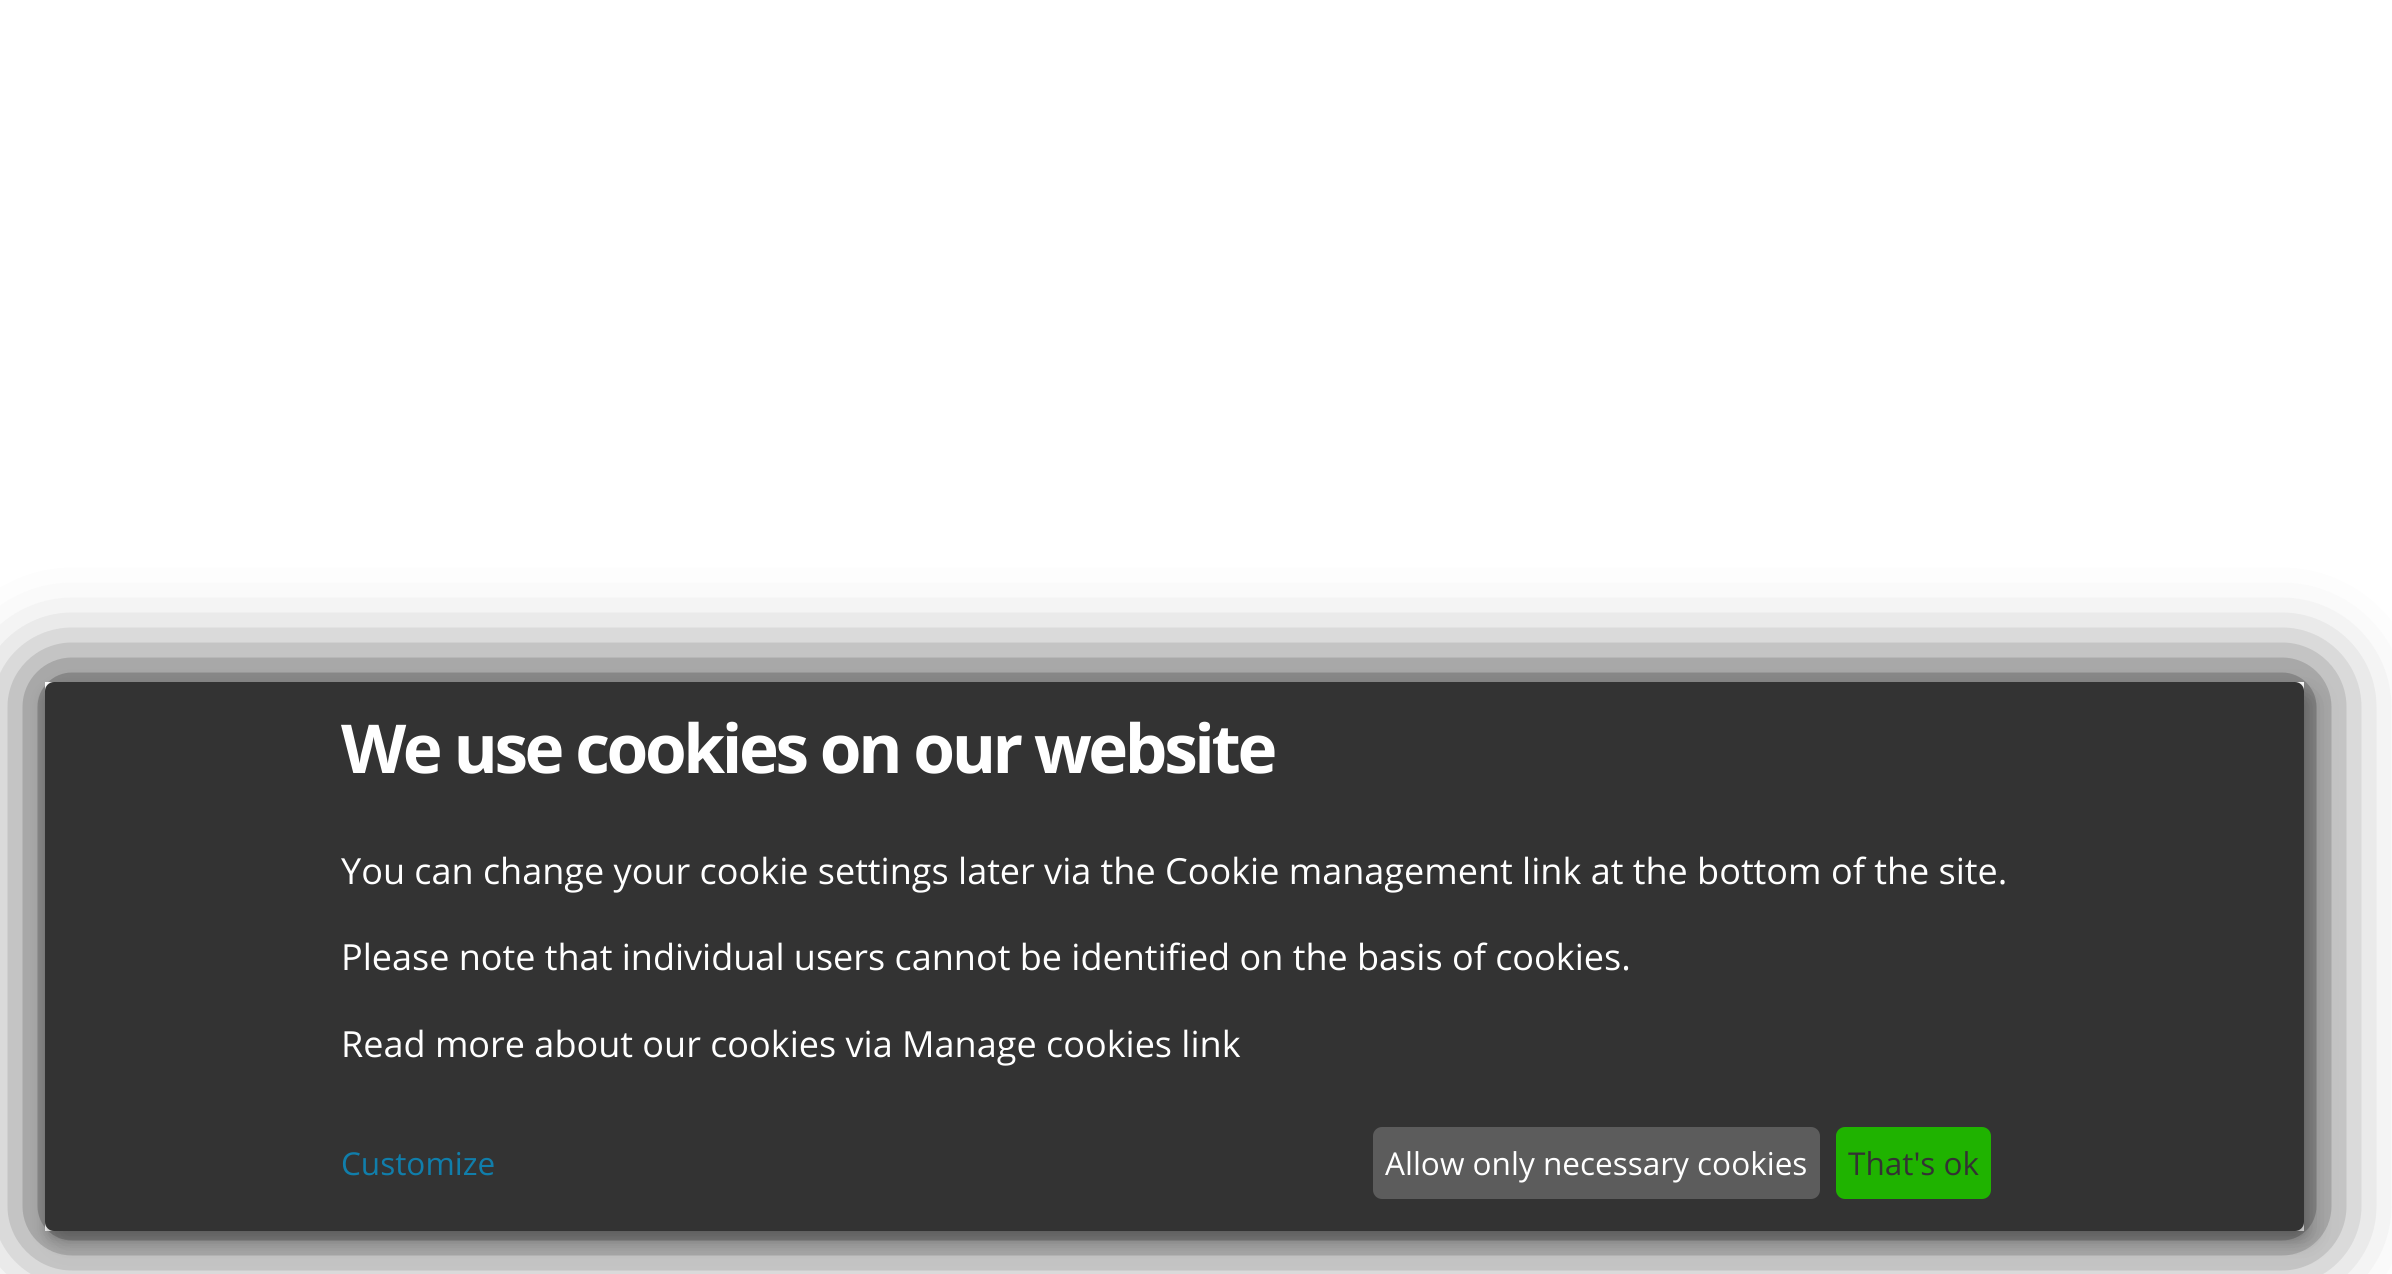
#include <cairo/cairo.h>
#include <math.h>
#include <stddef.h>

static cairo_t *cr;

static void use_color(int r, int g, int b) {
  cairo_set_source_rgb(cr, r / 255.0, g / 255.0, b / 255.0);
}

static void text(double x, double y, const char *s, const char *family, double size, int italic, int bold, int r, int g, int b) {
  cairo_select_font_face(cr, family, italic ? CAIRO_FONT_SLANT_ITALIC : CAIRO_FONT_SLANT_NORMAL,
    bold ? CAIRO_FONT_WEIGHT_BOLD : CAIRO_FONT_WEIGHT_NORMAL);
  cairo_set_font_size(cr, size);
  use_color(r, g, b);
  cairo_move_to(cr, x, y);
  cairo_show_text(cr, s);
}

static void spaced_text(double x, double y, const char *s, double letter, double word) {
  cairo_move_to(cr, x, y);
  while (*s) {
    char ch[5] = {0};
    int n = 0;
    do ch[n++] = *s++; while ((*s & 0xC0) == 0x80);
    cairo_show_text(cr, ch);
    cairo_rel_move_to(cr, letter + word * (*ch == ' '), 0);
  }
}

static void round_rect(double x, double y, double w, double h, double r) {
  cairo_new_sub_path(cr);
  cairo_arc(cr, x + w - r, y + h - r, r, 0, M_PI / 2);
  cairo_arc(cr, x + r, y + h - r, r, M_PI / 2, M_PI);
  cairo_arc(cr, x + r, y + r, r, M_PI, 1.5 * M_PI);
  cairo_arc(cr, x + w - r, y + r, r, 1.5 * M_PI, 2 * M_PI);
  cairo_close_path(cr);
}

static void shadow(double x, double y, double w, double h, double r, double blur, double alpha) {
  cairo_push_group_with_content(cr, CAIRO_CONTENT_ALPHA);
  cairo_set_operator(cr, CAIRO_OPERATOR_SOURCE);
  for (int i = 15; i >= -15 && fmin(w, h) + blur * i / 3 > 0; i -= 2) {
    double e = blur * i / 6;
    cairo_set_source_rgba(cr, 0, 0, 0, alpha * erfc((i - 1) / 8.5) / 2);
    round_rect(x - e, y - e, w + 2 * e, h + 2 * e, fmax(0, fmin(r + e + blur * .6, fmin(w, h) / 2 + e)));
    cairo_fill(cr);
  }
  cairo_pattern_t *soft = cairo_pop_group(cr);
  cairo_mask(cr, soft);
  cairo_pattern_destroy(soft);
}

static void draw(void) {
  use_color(255, 255, 255);
  cairo_paint(cr);
  use_color(0, 0, 0);
  shadow(56, 693, 2259, 549, 9, 11, 0.19);
  shadow(45, 691, 2259, 549, 9, 7, 0.2);
  use_color(51, 51, 51);
  round_rect(45, 682, 2259, 549, 9);
  cairo_fill(cr);
  cairo_save(cr);
  cairo_set_fill_rule(cr, CAIRO_FILL_RULE_EVEN_ODD);
  cairo_new_path(cr);
  cairo_move_to(cr, 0, 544);
  cairo_line_to(cr, 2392, 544);
  cairo_line_to(cr, 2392, 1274);
  cairo_line_to(cr, 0, 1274);
  cairo_close_path(cr);
  cairo_move_to(cr, 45, 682);
  cairo_line_to(cr, 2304, 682);
  cairo_line_to(cr, 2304, 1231);
  cairo_line_to(cr, 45, 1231);
  cairo_close_path(cr);
  cairo_clip(cr);
  use_color(18, 18, 18);
  shadow(45, 680, 2264, 553, 0, 45, 1);
  cairo_restore(cr);
  use_color(92, 92, 92);
  round_rect(1373, 1127, 447, 72, 9);
  cairo_fill(cr);
  use_color(31, 179, 0);
  round_rect(1836, 1127, 155, 72, 9);
  cairo_fill(cr);
  cairo_select_font_face(cr, "Open Sans", CAIRO_FONT_SLANT_NORMAL, CAIRO_FONT_WEIGHT_BOLD);
  cairo_set_font_size(cr, 67.5);
  use_color(255, 255, 255);
  spaced_text(341, 773, "We use cookies on our website", -3.4, 0);
  text(341, 884, "You can change your cookie settings later via the Cookie management link at the bottom of the site.", "Open Sans", 36, 0, 0, 255, 255, 255);
  text(341, 970, "Please note that individual users cannot be identified on the basis of cookies.", "Open Sans", 36, 0, 0, 255, 255, 255);
  text(341, 1057, "Read more about our cookies via Manage cookies link", "Open Sans", 36, 0, 0, 255, 255, 255);
  text(341, 1175, "Customize", "Open Sans", 31.5, 0, 0, 16, 126, 171);
  text(1385, 1175, "Allow only necessary cookies", "Open Sans", 31.5, 0, 0, 255, 255, 255);
  text(1848, 1175, "That's ok", "Open Sans", 31.5, 0, 0, 51, 51, 51);
}

int main(void) {
  cairo_surface_t *surface = cairo_image_surface_create(CAIRO_FORMAT_RGB24, 2392, 1274);
  cr = cairo_create(surface);
  cairo_font_options_t *options = cairo_font_options_create();
  cairo_font_options_set_hint_metrics(options, CAIRO_HINT_METRICS_OFF);
  cairo_font_options_set_hint_style(options, CAIRO_HINT_STYLE_NONE);
  cairo_set_font_options(cr, options);
  cairo_set_miter_limit(cr, 4);
  draw();
  cairo_surface_write_to_png(surface, "out.png");
  cairo_font_options_destroy(options);
  cairo_destroy(cr);
  cairo_surface_destroy(surface);
  return 0;
}
